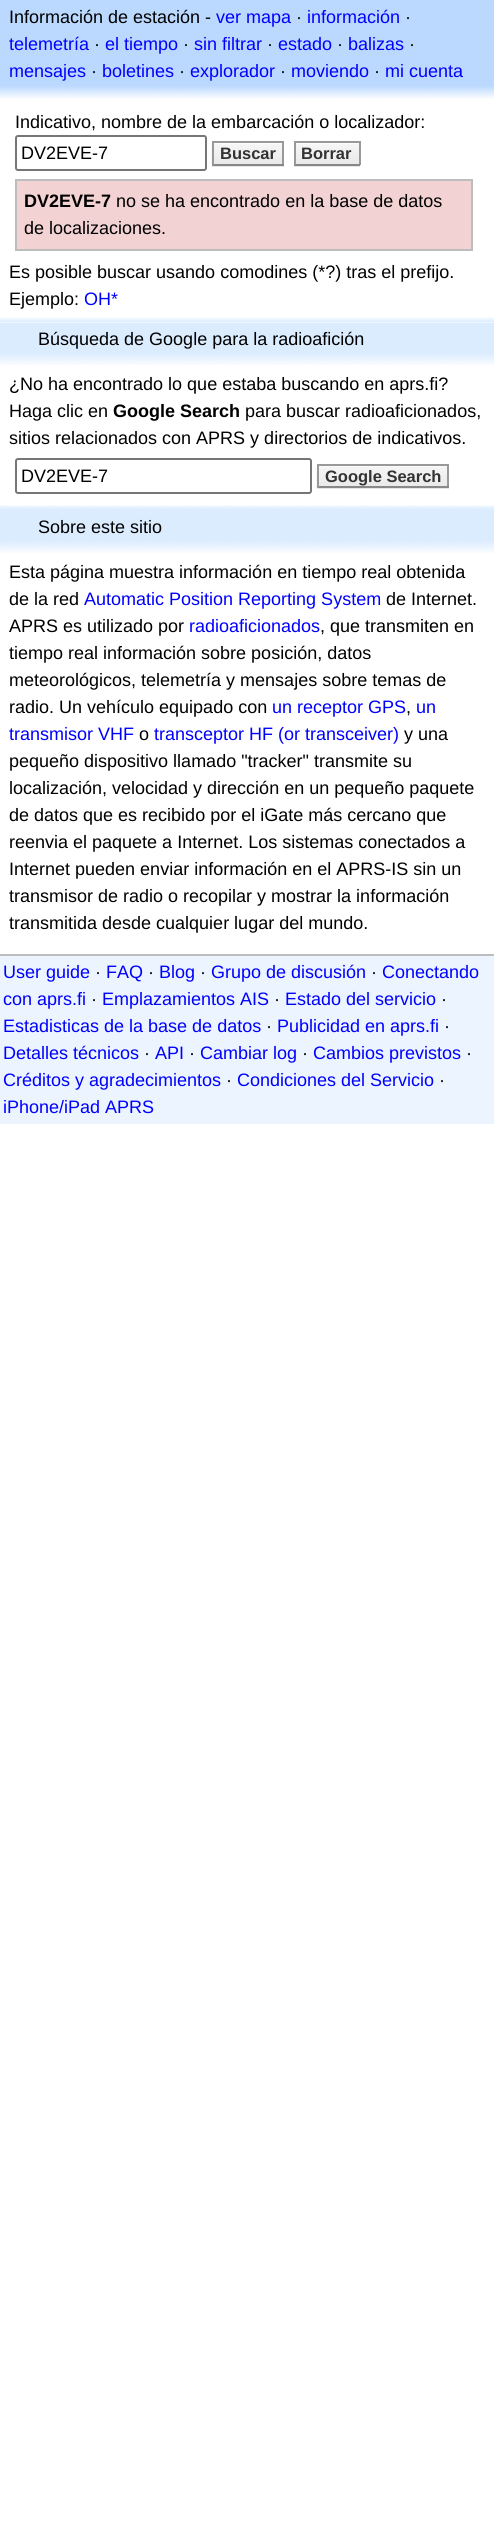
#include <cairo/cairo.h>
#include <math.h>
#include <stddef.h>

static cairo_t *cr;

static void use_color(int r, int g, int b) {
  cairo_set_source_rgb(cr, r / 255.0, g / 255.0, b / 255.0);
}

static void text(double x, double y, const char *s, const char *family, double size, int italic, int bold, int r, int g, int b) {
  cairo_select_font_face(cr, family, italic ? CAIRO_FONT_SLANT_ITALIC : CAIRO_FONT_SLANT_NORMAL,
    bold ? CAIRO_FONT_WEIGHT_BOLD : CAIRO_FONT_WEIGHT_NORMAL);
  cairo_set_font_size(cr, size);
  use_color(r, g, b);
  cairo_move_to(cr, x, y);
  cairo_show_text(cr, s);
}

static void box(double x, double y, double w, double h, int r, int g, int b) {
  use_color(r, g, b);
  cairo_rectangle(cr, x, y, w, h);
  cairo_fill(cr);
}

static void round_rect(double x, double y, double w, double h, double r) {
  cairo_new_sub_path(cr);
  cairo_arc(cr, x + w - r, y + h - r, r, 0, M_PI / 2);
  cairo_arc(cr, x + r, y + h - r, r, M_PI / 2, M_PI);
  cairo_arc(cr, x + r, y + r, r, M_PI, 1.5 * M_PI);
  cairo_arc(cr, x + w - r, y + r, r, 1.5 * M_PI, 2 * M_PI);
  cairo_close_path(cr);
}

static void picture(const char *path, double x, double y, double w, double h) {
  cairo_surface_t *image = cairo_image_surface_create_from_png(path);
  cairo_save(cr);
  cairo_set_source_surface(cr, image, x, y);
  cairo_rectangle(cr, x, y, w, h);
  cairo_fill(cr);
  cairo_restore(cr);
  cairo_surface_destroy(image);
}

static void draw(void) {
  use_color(255, 255, 255);
  cairo_paint(cr);
  box(0, 0, 494, 84, 187, 217, 255);
  picture("img_01.png", 0, 84, 494, 15);
  round_rect(16, 136, 190, 34, 2);
  use_color(118, 118, 118);
  cairo_stroke(cr);
  use_color(230, 230, 230);
  cairo_new_path(cr);
  cairo_move_to(cr, 212, 165);
  cairo_line_to(cr, 212, 167);
  cairo_line_to(cr, 284, 167);
  cairo_line_to(cr, 284, 143);
  cairo_line_to(cr, 284, 165);
  cairo_close_path(cr);
  cairo_fill(cr);
  picture("img_02.png", 211, 142, 71, 23);
  box(212, 141, 72, 2, 153, 153, 153);
  box(282, 141, 2, 24, 153, 153, 153);
  box(212, 164, 72, 2, 136, 136, 136);
  box(212, 141, 2, 24, 153, 153, 153);
  box(294, 166, 66, 1, 230, 230, 230);
  picture("img_03.png", 296, 143, 63, 21);
  box(294, 141, 66, 2, 153, 153, 153);
  box(359, 141, 2, 24, 153, 153, 153);
  box(294, 164, 66, 2, 136, 136, 136);
  box(294, 141, 2, 24, 153, 153, 153);
  use_color(242, 210, 210);
  cairo_rectangle(cr, 16, 180, 456, 70);
  cairo_fill_preserve(cr);
  use_color(189, 189, 189);
  cairo_stroke(cr);
  picture("img_04.png", 0, 317, 494, 6);
  box(0, 323, 494, 30, 220, 236, 255);
  picture("img_05.png", 0, 353, 494, 12);
  round_rect(16, 459, 295, 34, 2);
  use_color(118, 118, 118);
  cairo_stroke(cr);
  use_color(230, 230, 230);
  cairo_new_path(cr);
  cairo_move_to(cr, 317, 488);
  cairo_line_to(cr, 317, 489);
  cairo_line_to(cr, 449, 489);
  cairo_line_to(cr, 449, 465);
  cairo_line_to(cr, 448, 465);
  cairo_line_to(cr, 448, 488);
  cairo_close_path(cr);
  cairo_fill(cr);
  picture("img_06.png", 316, 465, 131, 23);
  box(317, 464, 132, 2, 153, 153, 153);
  box(447, 464, 2, 24, 153, 153, 153);
  box(317, 486, 132, 2, 136, 136, 136);
  box(317, 464, 2, 24, 153, 153, 153);
  picture("img_07.png", 0, 505, 494, 5);
  box(0, 510, 494, 30, 220, 236, 255);
  picture("img_08.png", 0, 540, 494, 13);
  box(0, 956, 494, 168, 235, 244, 255);
  box(0, 954, 494, 2, 189, 189, 189);
  text(9, 23, "Información de estación -", "Liberation Sans", 18, 0, 0, 0, 0, 0);
  text(216, 23, "ver mapa", "Liberation Sans", 18, 0, 0, 0, 0, 255);
  text(296, 23, "·", "Liberation Sans", 18, 0, 0, 0, 0, 0);
  text(307, 23, "información", "Liberation Sans", 18, 0, 0, 0, 0, 255);
  text(405, 23, "·", "Liberation Sans", 18, 0, 0, 0, 0, 0);
  text(9, 50, "telemetría", "Liberation Sans", 18, 0, 0, 0, 0, 255);
  text(94, 50, "·", "Liberation Sans", 18, 0, 0, 0, 0, 0);
  text(105, 50, "el tiempo", "Liberation Sans", 18, 0, 0, 0, 0, 255);
  text(183, 50, "·", "Liberation Sans", 18, 0, 0, 0, 0, 0);
  text(194, 50, "sin filtrar", "Liberation Sans", 18, 0, 0, 0, 0, 255);
  text(267, 50, "·", "Liberation Sans", 18, 0, 0, 0, 0, 0);
  text(278, 50, "estado", "Liberation Sans", 18, 0, 0, 0, 0, 255);
  text(337, 50, "·", "Liberation Sans", 18, 0, 0, 0, 0, 0);
  text(348, 50, "balizas", "Liberation Sans", 18, 0, 0, 0, 0, 255);
  text(409, 50, "·", "Liberation Sans", 18, 0, 0, 0, 0, 0);
  text(9, 77, "mensajes", "Liberation Sans", 18, 0, 0, 0, 0, 255);
  text(91, 77, "·", "Liberation Sans", 18, 0, 0, 0, 0, 0);
  text(102, 77, "boletines", "Liberation Sans", 18, 0, 0, 0, 0, 255);
  text(179, 77, "·", "Liberation Sans", 18, 0, 0, 0, 0, 0);
  text(190, 77, "explorador", "Liberation Sans", 18, 0, 0, 0, 0, 255);
  text(280, 77, "·", "Liberation Sans", 18, 0, 0, 0, 0, 0);
  text(291, 77, "moviendo", "Liberation Sans", 18, 0, 0, 0, 0, 255);
  text(374, 77, "·", "Liberation Sans", 18, 0, 0, 0, 0, 0);
  text(385, 77, "mi cuenta", "Liberation Sans", 18, 0, 0, 0, 0, 255);
  text(15, 128, "Indicativo, nombre de la embarcación o localizador:", "Liberation Sans", 18, 0, 0, 0, 0, 0);
  text(21, 159, "DV2EVE-7", "Liberation Sans", 18, 0, 0, 0, 0, 0);
  text(220, 159, "Buscar", "Liberation Sans", 16.5, 0, 1, 51, 51, 51);
  text(301, 159, "Borrar", "Liberation Sans", 16.5, 0, 1, 51, 51, 51);
  text(24, 207, "DV2EVE-7", "Liberation Sans", 18, 0, 1, 0, 0, 0);
  text(116, 207, "no se ha encontrado en la base de datos", "Liberation Sans", 18, 0, 0, 0, 0, 0);
  text(24, 234, "de localizaciones.", "Liberation Sans", 18, 0, 0, 0, 0, 0);
  text(9, 278, "Es posible buscar usando comodines (*?) tras el prefijo.", "Liberation Sans", 18, 0, 0, 0, 0, 0);
  text(9, 305, "Ejemplo:", "Liberation Sans", 18, 0, 0, 0, 0, 0);
  text(84, 305, "OH*", "Liberation Sans", 18, 0, 0, 0, 0, 255);
  text(38, 345, "Búsqueda de Google para la radioafición", "Liberation Sans", 18, 0, 0, 0, 0, 0);
  text(9, 390, "¿No ha encontrado lo que estaba buscando en aprs.fi?", "Liberation Sans", 18, 0, 0, 0, 0, 0);
  text(9, 417, "Haga clic en", "Liberation Sans", 18, 0, 0, 0, 0, 0);
  text(113, 417, "Google Search", "Liberation Sans", 18, 0, 1, 0, 0, 0);
  text(245, 417, "para buscar radioaficionados,", "Liberation Sans", 18, 0, 0, 0, 0, 0);
  text(9, 444, "sitios relacionados con APRS y directorios de indicativos.", "Liberation Sans", 18, 0, 0, 0, 0, 0);
  text(21, 482, "DV2EVE-7", "Liberation Sans", 18, 0, 0, 0, 0, 0);
  text(325, 482, "Google Search", "Liberation Sans", 16.5, 0, 1, 51, 51, 51);
  text(38, 533, "Sobre este sitio", "Liberation Sans", 18, 0, 0, 0, 0, 0);
  text(9, 578, "Esta página muestra información en tiempo real obtenida", "Liberation Sans", 18, 0, 0, 0, 0, 0);
  text(9, 605, "de la red", "Liberation Sans", 18, 0, 0, 0, 0, 0);
  text(84, 605, "Automatic Position Reporting System", "Liberation Sans", 18, 0, 0, 0, 0, 255);
  text(386, 605, "de Internet.", "Liberation Sans", 18, 0, 0, 0, 0, 0);
  text(9, 632, "APRS es utilizado por", "Liberation Sans", 18, 0, 0, 0, 0, 0);
  text(189, 632, "radioaficionados", "Liberation Sans", 18, 0, 0, 0, 0, 255);
  text(320, 632, ", que transmiten en", "Liberation Sans", 18, 0, 0, 0, 0, 0);
  text(9, 659, "tiempo real información sobre posición, datos", "Liberation Sans", 18, 0, 0, 0, 0, 0);
  text(9, 686, "meteorológicos, telemetría y mensajes sobre temas de", "Liberation Sans", 18, 0, 0, 0, 0, 0);
  text(9, 713, "radio. Un vehículo equipado con", "Liberation Sans", 18, 0, 0, 0, 0, 0);
  text(272, 713, "un receptor GPS", "Liberation Sans", 18, 0, 0, 0, 0, 255);
  text(406, 713, ",", "Liberation Sans", 18, 0, 0, 0, 0, 0);
  text(416, 713, "un", "Liberation Sans", 18, 0, 0, 0, 0, 255);
  text(9, 740, "transmisor VHF", "Liberation Sans", 18, 0, 0, 0, 0, 255);
  text(139, 740, "o", "Liberation Sans", 18, 0, 0, 0, 0, 0);
  text(154, 740, "transceptor HF (or transceiver)", "Liberation Sans", 18, 0, 0, 0, 0, 255);
  text(404, 740, "y una", "Liberation Sans", 18, 0, 0, 0, 0, 0);
  text(9, 767, "pequeño dispositivo llamado \"tracker\" transmite su", "Liberation Sans", 18, 0, 0, 0, 0, 0);
  text(9, 794, "localización, velocidad y dirección en un pequeño paquete", "Liberation Sans", 18, 0, 0, 0, 0, 0);
  text(9, 821, "de datos que es recibido por el iGate más cercano que", "Liberation Sans", 18, 0, 0, 0, 0, 0);
  text(9, 848, "reenvia el paquete a Internet. Los sistemas conectados a", "Liberation Sans", 18, 0, 0, 0, 0, 0);
  text(9, 875, "Internet pueden enviar información en el APRS-IS sin un", "Liberation Sans", 18, 0, 0, 0, 0, 0);
  text(9, 902, "transmisor de radio o recopilar y mostrar la información", "Liberation Sans", 18, 0, 0, 0, 0, 0);
  text(9, 929, "transmitida desde cualquier lugar del mundo.", "Liberation Sans", 18, 0, 0, 0, 0, 0);
  text(3, 978, "User guide", "Liberation Sans", 18, 0, 0, 0, 0, 255);
  text(95, 978, "·", "Liberation Sans", 18, 0, 0, 0, 0, 0);
  text(106, 978, "FAQ", "Liberation Sans", 18, 0, 0, 0, 0, 255);
  text(148, 978, "·", "Liberation Sans", 18, 0, 0, 0, 0, 0);
  text(159, 978, "Blog", "Liberation Sans", 18, 0, 0, 0, 0, 255);
  text(200, 978, "·", "Liberation Sans", 18, 0, 0, 0, 0, 0);
  text(211, 978, "Grupo de discusión", "Liberation Sans", 18, 0, 0, 0, 0, 255);
  text(371, 978, "·", "Liberation Sans", 18, 0, 0, 0, 0, 0);
  text(382, 978, "Conectando", "Liberation Sans", 18, 0, 0, 0, 0, 255);
  text(3, 1005, "con aprs.fi", "Liberation Sans", 18, 0, 0, 0, 0, 255);
  text(91, 1005, "·", "Liberation Sans", 18, 0, 0, 0, 0, 0);
  text(102, 1005, "Emplazamientos AIS", "Liberation Sans", 18, 0, 0, 0, 0, 255);
  text(274, 1005, "·", "Liberation Sans", 18, 0, 0, 0, 0, 0);
  text(285, 1005, "Estado del servicio", "Liberation Sans", 18, 0, 0, 0, 0, 255);
  text(441, 1005, "·", "Liberation Sans", 18, 0, 0, 0, 0, 0);
  text(3, 1032, "Estadisticas de la base de datos", "Liberation Sans", 18, 0, 0, 0, 0, 255);
  text(266, 1032, "·", "Liberation Sans", 18, 0, 0, 0, 0, 0);
  text(277, 1032, "Publicidad en aprs.fi", "Liberation Sans", 18, 0, 0, 0, 0, 255);
  text(444, 1032, "·", "Liberation Sans", 18, 0, 0, 0, 0, 0);
  text(3, 1059, "Detalles técnicos", "Liberation Sans", 18, 0, 0, 0, 0, 255);
  text(144, 1059, "·", "Liberation Sans", 18, 0, 0, 0, 0, 0);
  text(155, 1059, "API", "Liberation Sans", 18, 0, 0, 0, 0, 255);
  text(189, 1059, "·", "Liberation Sans", 18, 0, 0, 0, 0, 0);
  text(200, 1059, "Cambiar log", "Liberation Sans", 18, 0, 0, 0, 0, 255);
  text(302, 1059, "·", "Liberation Sans", 18, 0, 0, 0, 0, 0);
  text(313, 1059, "Cambios previstos", "Liberation Sans", 18, 0, 0, 0, 0, 255);
  text(466, 1059, "·", "Liberation Sans", 18, 0, 0, 0, 0, 0);
  text(3, 1086, "Créditos y agradecimientos", "Liberation Sans", 18, 0, 0, 0, 0, 255);
  text(226, 1086, "·", "Liberation Sans", 18, 0, 0, 0, 0, 0);
  text(237, 1086, "Condiciones del Servicio", "Liberation Sans", 18, 0, 0, 0, 0, 255);
  text(439, 1086, "·", "Liberation Sans", 18, 0, 0, 0, 0, 0);
  text(3, 1113, "iPhone/iPad APRS", "Liberation Sans", 18, 0, 0, 0, 0, 255);
}

int main(void) {
  cairo_surface_t *surface = cairo_image_surface_create(CAIRO_FORMAT_RGB24, 494, 2523);
  cr = cairo_create(surface);
  cairo_font_options_t *options = cairo_font_options_create();
  cairo_font_options_set_hint_metrics(options, CAIRO_HINT_METRICS_OFF);
  cairo_font_options_set_hint_style(options, CAIRO_HINT_STYLE_NONE);
  cairo_set_font_options(cr, options);
  cairo_set_miter_limit(cr, 4);
  draw();
  cairo_surface_write_to_png(surface, "out.png");
  cairo_font_options_destroy(options);
  cairo_destroy(cr);
  cairo_surface_destroy(surface);
  return 0;
}
